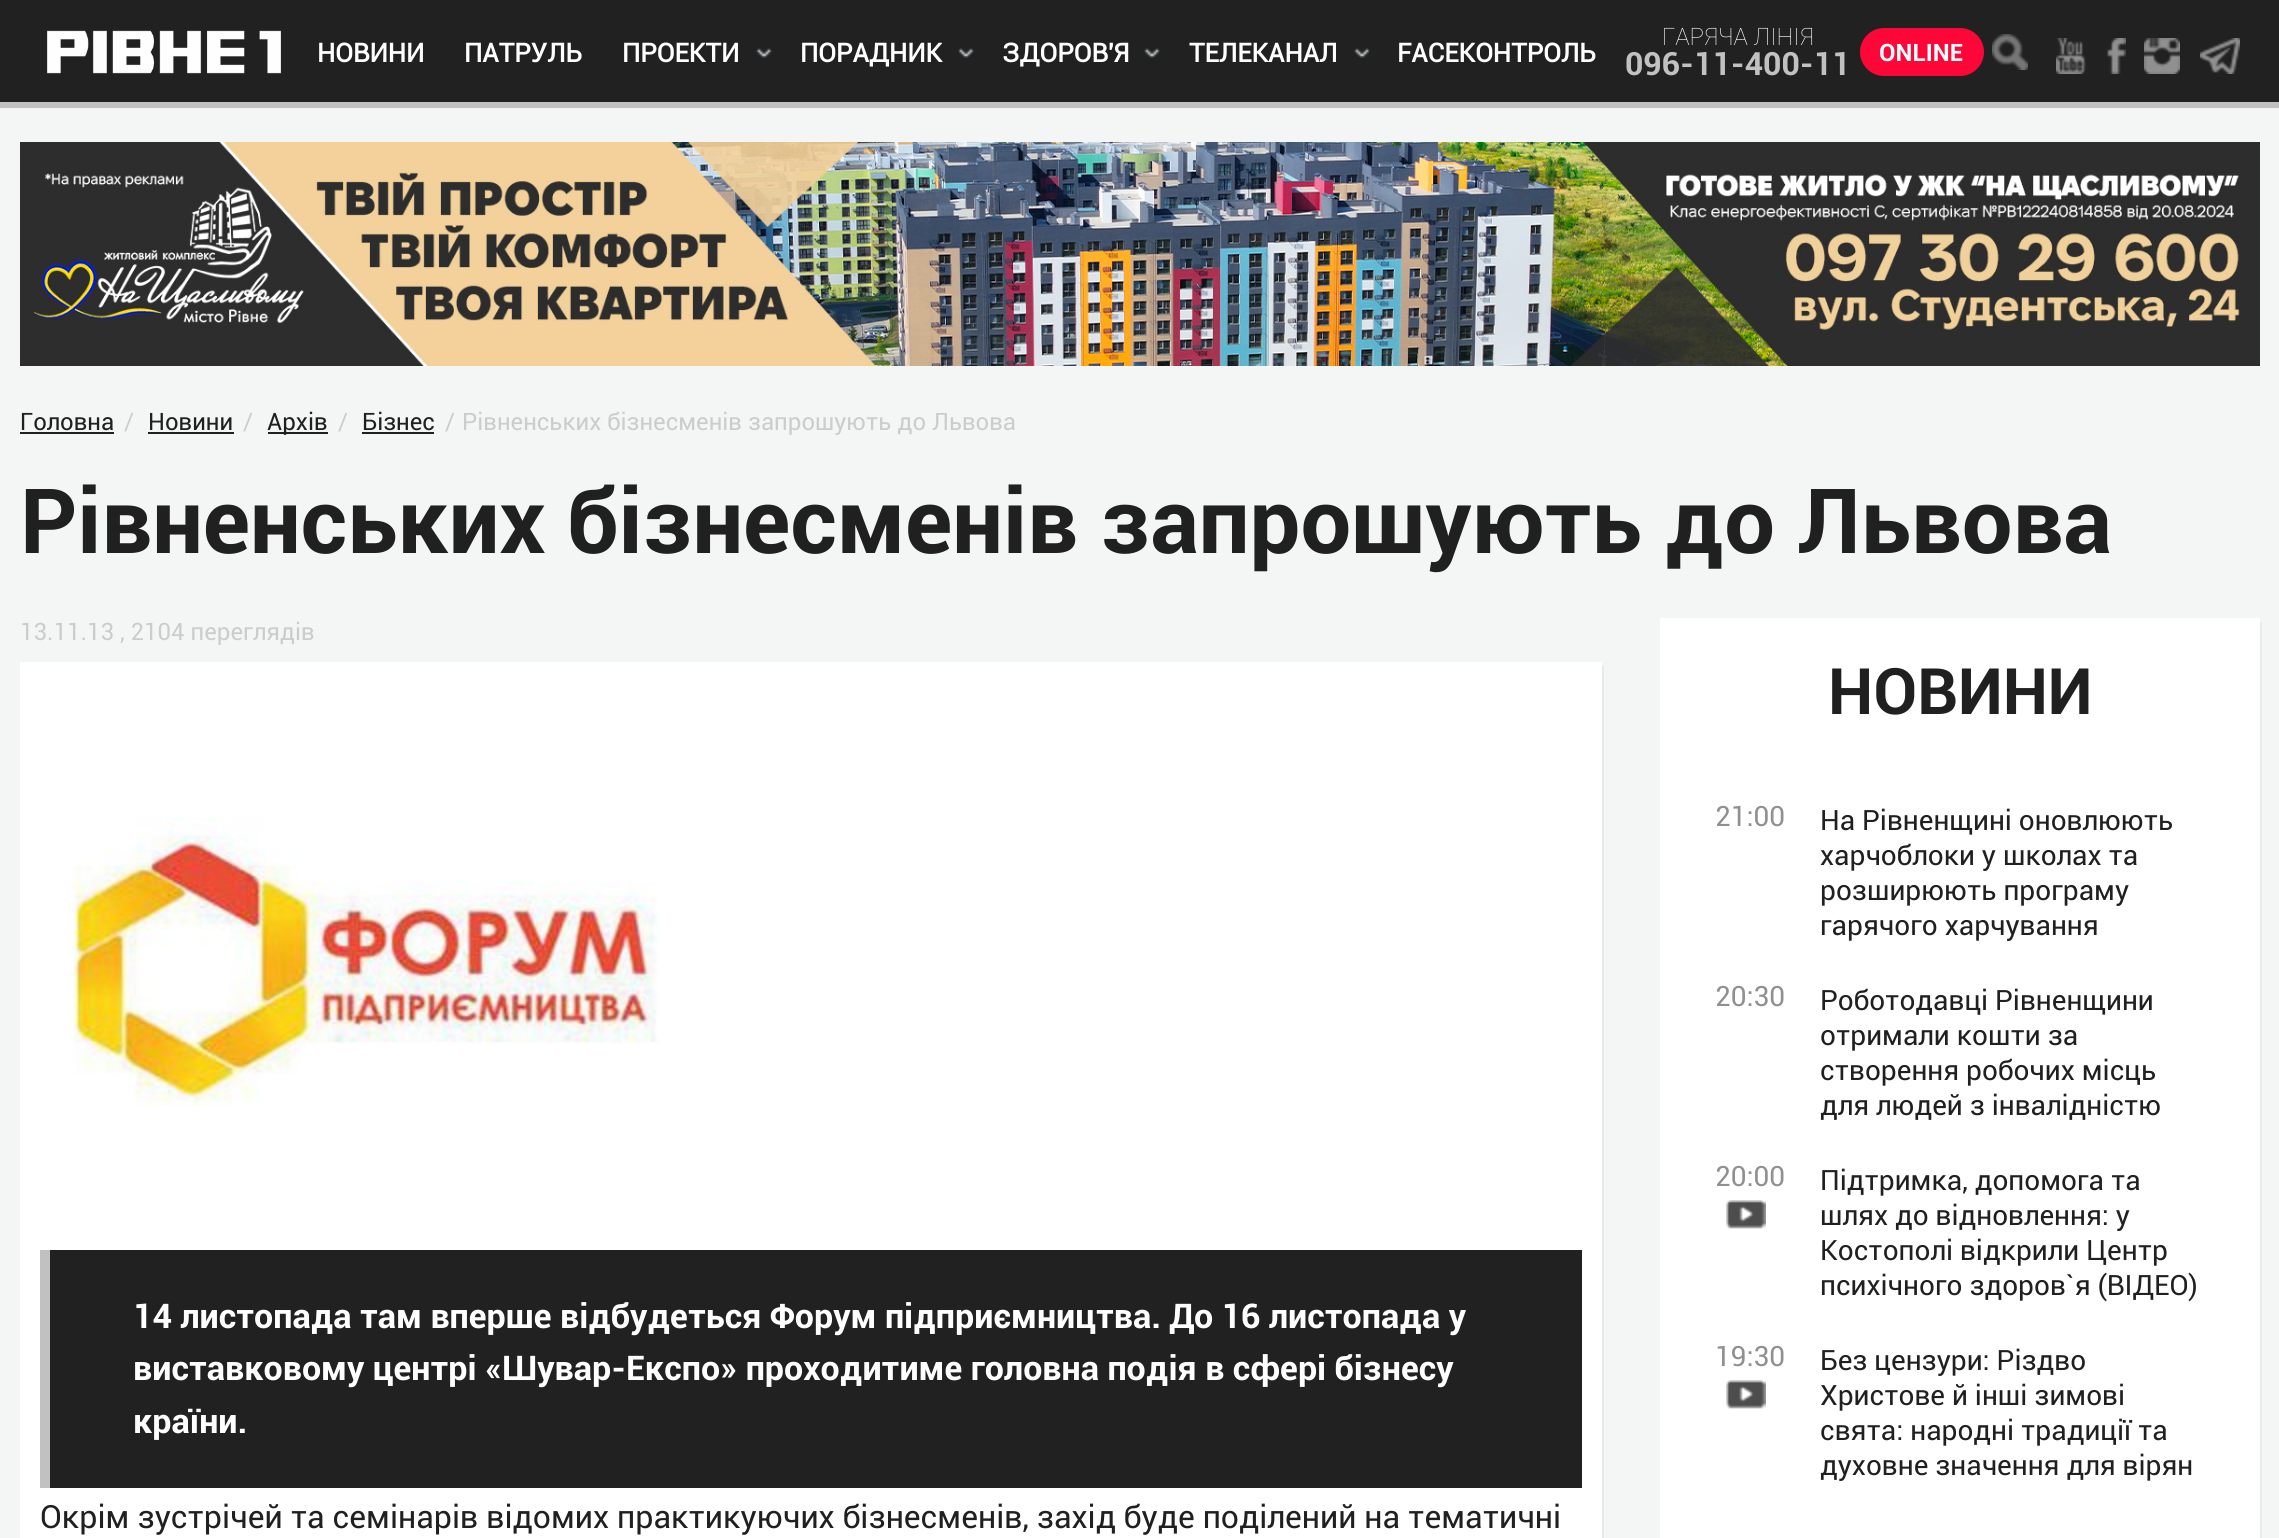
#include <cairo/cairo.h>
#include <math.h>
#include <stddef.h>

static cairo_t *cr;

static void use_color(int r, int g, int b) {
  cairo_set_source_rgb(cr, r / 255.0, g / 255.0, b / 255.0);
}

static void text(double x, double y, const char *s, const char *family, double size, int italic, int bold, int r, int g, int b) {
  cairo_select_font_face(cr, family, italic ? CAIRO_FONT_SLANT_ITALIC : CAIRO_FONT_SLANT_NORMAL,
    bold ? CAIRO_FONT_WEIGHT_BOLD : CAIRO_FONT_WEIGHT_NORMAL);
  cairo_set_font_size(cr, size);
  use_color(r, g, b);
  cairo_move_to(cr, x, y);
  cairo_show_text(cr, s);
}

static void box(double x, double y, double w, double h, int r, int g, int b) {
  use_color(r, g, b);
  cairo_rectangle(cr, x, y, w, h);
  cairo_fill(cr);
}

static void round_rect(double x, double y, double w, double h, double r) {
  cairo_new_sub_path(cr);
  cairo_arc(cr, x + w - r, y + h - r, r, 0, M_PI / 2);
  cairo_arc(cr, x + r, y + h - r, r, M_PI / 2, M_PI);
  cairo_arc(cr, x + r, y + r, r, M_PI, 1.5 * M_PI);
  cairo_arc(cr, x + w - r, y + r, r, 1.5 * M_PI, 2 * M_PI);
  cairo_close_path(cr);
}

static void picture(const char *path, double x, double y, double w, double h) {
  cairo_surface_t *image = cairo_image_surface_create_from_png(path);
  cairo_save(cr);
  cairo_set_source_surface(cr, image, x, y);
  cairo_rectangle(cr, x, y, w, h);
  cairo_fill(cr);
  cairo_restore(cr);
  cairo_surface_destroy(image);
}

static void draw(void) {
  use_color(244, 246, 245);
  cairo_paint(cr);
  box(0, 0, 2279, 102, 33, 33, 33);
  box(0, 102, 2279, 6, 193, 193, 193);
  picture("img_01.png", 47, 30, 234, 44);
  picture("img_02.png", 756, 48, 16, 10);
  picture("img_02.png", 958, 48, 16, 10);
  picture("img_02.png", 1144, 48, 16, 10);
  picture("img_02.png", 1354, 48, 16, 10);
  use_color(253, 6, 56);
  round_rect(1860, 28, 124, 48, 24);
  cairo_fill(cr);
  picture("img_03.png", 1992, 34, 36, 36);
  picture("img_04.png", 2056, 38, 30, 36);
  picture("img_05.png", 2106, 38, 20, 36);
  picture("img_06.png", 2144, 38, 36, 36);
  picture("img_07.png", 2200, 38, 40, 36);
  picture("img_08.png", 20, 142, 2240, 224);
  box(20, 432, 94, 2, 32, 32, 32);
  box(148, 432, 86, 2, 32, 32, 32);
  box(268, 432, 60, 2, 32, 32, 32);
  box(362, 432, 72, 2, 32, 32, 32);
  use_color(232, 234, 233);
  cairo_new_path(cr);
  cairo_move_to(cr, 22, 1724);
  cairo_line_to(cr, 22, 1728);
  cairo_line_to(cr, 1604, 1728);
  cairo_line_to(cr, 1604, 666);
  cairo_line_to(cr, 1602, 666);
  cairo_line_to(cr, 1602, 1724);
  cairo_close_path(cr);
  cairo_fill(cr);
  box(20, 662, 1582, 876, 255, 255, 255);
  picture("img_09.png", 71, 817, 588, 290);
  box(50, 1250, 1532, 238, 33, 33, 33);
  box(40, 1250, 10, 238, 193, 193, 193);
  use_color(232, 234, 233);
  cairo_new_path(cr);
  cairo_move_to(cr, 1662, 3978);
  cairo_line_to(cr, 1662, 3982);
  cairo_line_to(cr, 2262, 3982);
  cairo_line_to(cr, 2262, 622);
  cairo_line_to(cr, 2260, 622);
  cairo_line_to(cr, 2260, 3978);
  cairo_close_path(cr);
  cairo_fill(cr);
  box(1660, 618, 600, 920, 255, 255, 255);
  picture("img_10.png", 1726, 1200, 40, 29);
  picture("img_10.png", 1726, 1380, 40, 29);
  text(317, 62, "НОВИНИ", "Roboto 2", 26, 0, 1, 255, 255, 255);
  text(464, 62, "ПАТРУЛЬ", "Roboto 2", 26, 0, 1, 255, 255, 255);
  text(622, 62, "ПРОЕКТИ", "Roboto 2", 26, 0, 1, 255, 255, 255);
  text(800, 62, "ПОРАДНИК", "Roboto 2", 26, 0, 1, 255, 255, 255);
  text(1002, 62, "ЗДОРОВ'Я", "Roboto 2", 26, 0, 1, 255, 255, 255);
  text(1189, 62, "ТЕЛЕКАНАЛ", "Roboto 2", 26, 0, 1, 255, 255, 255);
  text(1397, 62, "FACEКОНТРОЛЬ", "Roboto 2", 26, 0, 1, 255, 255, 255);
  text(1662, 45, "ГАРЯЧА ЛIНIЯ", "Roboto Thin", 24, 0, 0, 255, 255, 255);
  text(1625, 75, "096-11-400-11", "Roboto", 32, 0, 1, 193, 193, 193);
  text(1879, 61, "ONLINE", "Roboto", 24, 0, 1, 255, 255, 255);
  text(20, 430, "Головна", "Roboto", 24, 0, 0, 32, 32, 32);
  text(124, 430, "/", "Roboto", 24, 0, 0, 204, 204, 204);
  text(148, 430, "Новини", "Roboto", 24, 0, 0, 32, 32, 32);
  text(243, 430, "/", "Roboto", 24, 0, 0, 204, 204, 204);
  text(267, 430, "Архів", "Roboto", 24, 0, 0, 32, 32, 32);
  text(338, 430, "/", "Roboto", 24, 0, 0, 204, 204, 204);
  text(362, 430, "Бізнес", "Roboto", 24, 0, 0, 32, 32, 32);
  text(445, 430, "/", "Roboto", 24, 0, 0, 204, 204, 204);
  text(462, 430, "Рівненських бізнесменів запрошують до Львова", "Roboto", 24, 0, 0, 204, 204, 204);
  text(20, 553, "Рівненських бізнесменів запрошують до Львова", "Roboto", 90, 0, 1, 32, 32, 32);
  text(20, 640, "13.11.13 , 2104 переглядів", "Roboto", 24, 0, 0, 204, 204, 204);
  text(133, 1328, "14 листопада там вперше відбудеться Форум підприємництва. До 16 листопада у", "Roboto", 34, 0, 1, 255, 255, 255);
  text(133, 1380, "виставковому центрі «Шувар-Експо» проходитиме головна подія в сфері бізнесу", "Roboto", 34, 0, 1, 255, 255, 255);
  text(133, 1433, "країни.", "Roboto", 34, 0, 1, 255, 255, 255);
  text(40, 1528, "Окрім зустрічей та семінарів відомих практикуючих бізнесменів, захід буде поділений на тематичні", "Roboto", 32, 0, 0, 32, 32, 32);
  text(1828, 714, "НОВИНИ", "Roboto", 64, 0, 1, 32, 32, 32);
  text(1715, 826, "21:00", "Roboto", 28, 0, 0, 144, 144, 144);
  text(1820, 830, "На Рівненщині оновлюють", "Roboto", 28, 0, 0, 32, 32, 32);
  text(1820, 865, "харчоблоки у школах та", "Roboto", 28, 0, 0, 32, 32, 32);
  text(1820, 900, "розширюють програму", "Roboto", 28, 0, 0, 32, 32, 32);
  text(1820, 935, "гарячого харчування", "Roboto", 28, 0, 0, 32, 32, 32);
  text(1715, 1006, "20:30", "Roboto", 28, 0, 0, 144, 144, 144);
  text(1820, 1010, "Роботодавці Рівненщини", "Roboto", 28, 0, 0, 32, 32, 32);
  text(1820, 1045, "отримали кошти за", "Roboto", 28, 0, 0, 32, 32, 32);
  text(1820, 1080, "створення робочих місць", "Roboto", 28, 0, 0, 32, 32, 32);
  text(1820, 1115, "для людей з інвалідністю", "Roboto", 28, 0, 0, 32, 32, 32);
  text(1715, 1186, "20:00", "Roboto", 28, 0, 0, 144, 144, 144);
  text(1820, 1190, "Підтримка, допомога та", "Roboto", 28, 0, 0, 32, 32, 32);
  text(1820, 1225, "шлях до відновлення: у", "Roboto", 28, 0, 0, 32, 32, 32);
  text(1820, 1260, "Костополі відкрили Центр", "Roboto", 28, 0, 0, 32, 32, 32);
  text(1820, 1295, "психічного здоров`я (ВІДЕО)", "Roboto", 28, 0, 0, 32, 32, 32);
  text(1715, 1366, "19:30", "Roboto", 28, 0, 0, 144, 144, 144);
  text(1820, 1370, "Без цензури: Різдво", "Roboto", 28, 0, 0, 32, 32, 32);
  text(1820, 1405, "Христове й інші зимові", "Roboto", 28, 0, 0, 32, 32, 32);
  text(1820, 1440, "свята: народні традиції та", "Roboto", 28, 0, 0, 32, 32, 32);
  text(1820, 1475, "духовне значення для вірян", "Roboto", 28, 0, 0, 32, 32, 32);
}

int main(void) {
  cairo_surface_t *surface = cairo_image_surface_create(CAIRO_FORMAT_RGB24, 2279, 1538);
  cr = cairo_create(surface);
  cairo_font_options_t *options = cairo_font_options_create();
  cairo_font_options_set_hint_metrics(options, CAIRO_HINT_METRICS_OFF);
  cairo_font_options_set_hint_style(options, CAIRO_HINT_STYLE_NONE);
  cairo_set_font_options(cr, options);
  cairo_set_miter_limit(cr, 4);
  draw();
  cairo_surface_write_to_png(surface, "out.png");
  cairo_font_options_destroy(options);
  cairo_destroy(cr);
  cairo_surface_destroy(surface);
  return 0;
}
